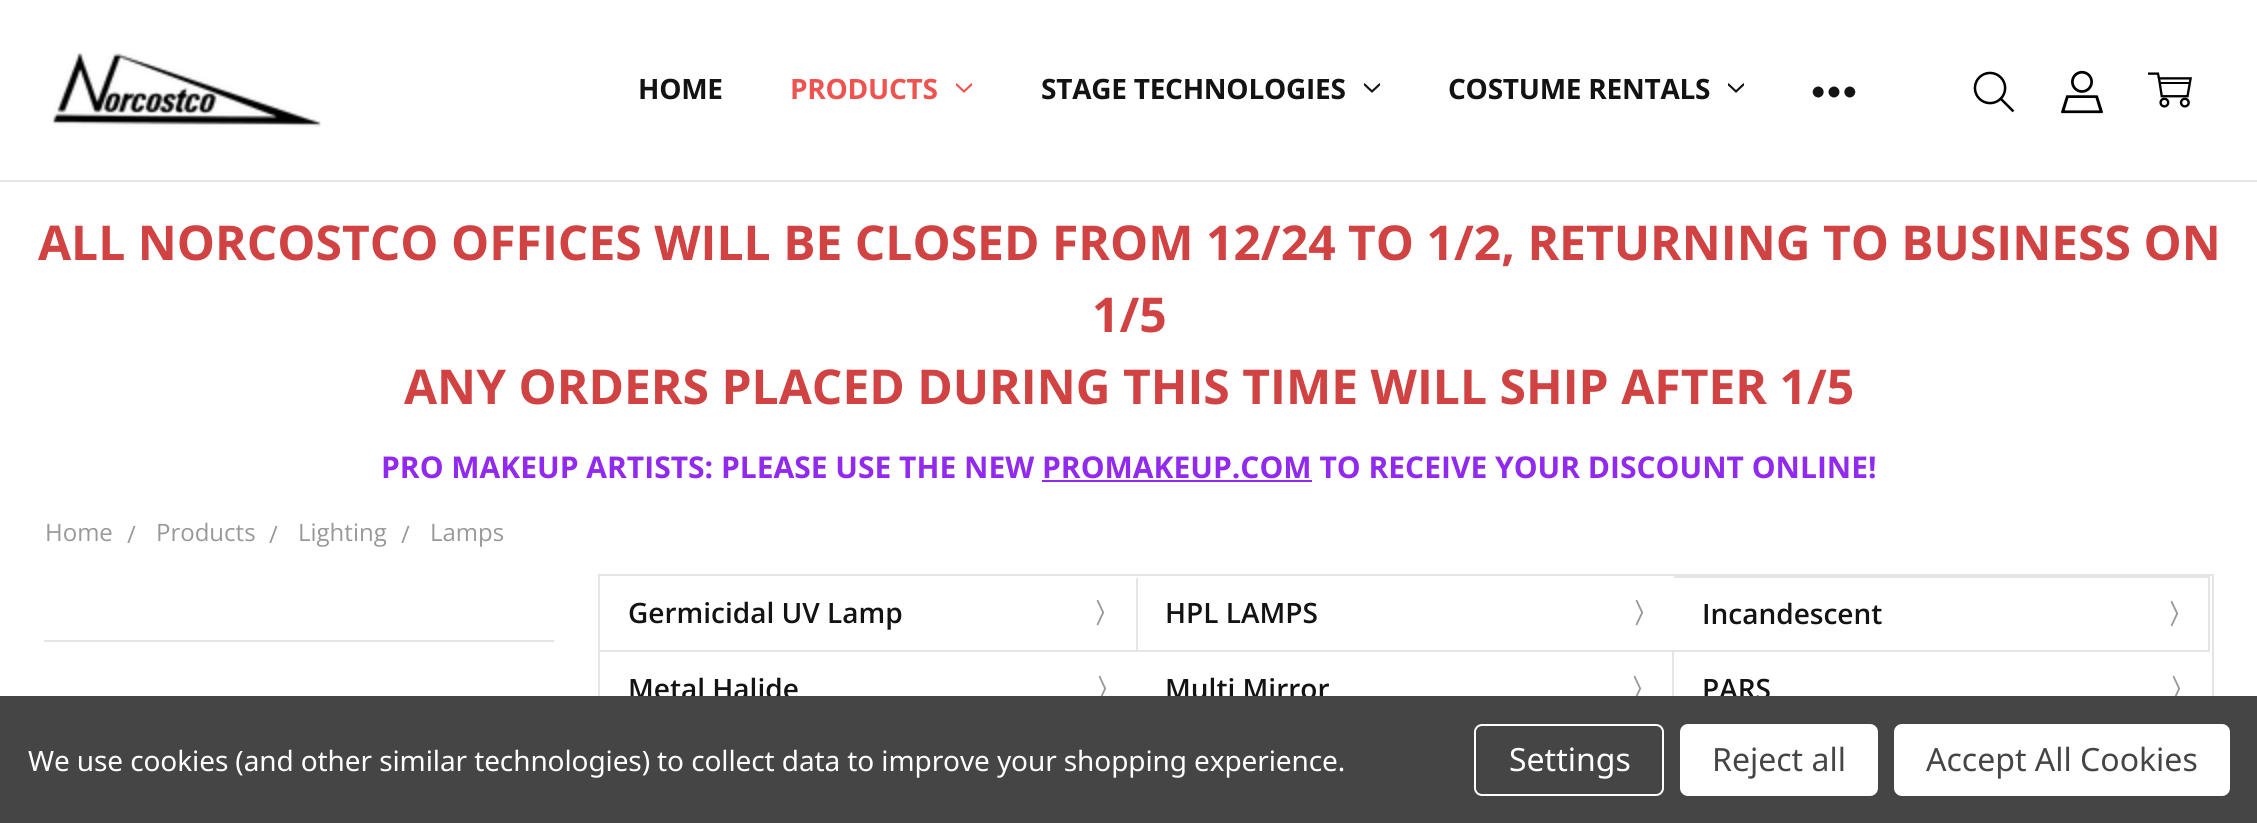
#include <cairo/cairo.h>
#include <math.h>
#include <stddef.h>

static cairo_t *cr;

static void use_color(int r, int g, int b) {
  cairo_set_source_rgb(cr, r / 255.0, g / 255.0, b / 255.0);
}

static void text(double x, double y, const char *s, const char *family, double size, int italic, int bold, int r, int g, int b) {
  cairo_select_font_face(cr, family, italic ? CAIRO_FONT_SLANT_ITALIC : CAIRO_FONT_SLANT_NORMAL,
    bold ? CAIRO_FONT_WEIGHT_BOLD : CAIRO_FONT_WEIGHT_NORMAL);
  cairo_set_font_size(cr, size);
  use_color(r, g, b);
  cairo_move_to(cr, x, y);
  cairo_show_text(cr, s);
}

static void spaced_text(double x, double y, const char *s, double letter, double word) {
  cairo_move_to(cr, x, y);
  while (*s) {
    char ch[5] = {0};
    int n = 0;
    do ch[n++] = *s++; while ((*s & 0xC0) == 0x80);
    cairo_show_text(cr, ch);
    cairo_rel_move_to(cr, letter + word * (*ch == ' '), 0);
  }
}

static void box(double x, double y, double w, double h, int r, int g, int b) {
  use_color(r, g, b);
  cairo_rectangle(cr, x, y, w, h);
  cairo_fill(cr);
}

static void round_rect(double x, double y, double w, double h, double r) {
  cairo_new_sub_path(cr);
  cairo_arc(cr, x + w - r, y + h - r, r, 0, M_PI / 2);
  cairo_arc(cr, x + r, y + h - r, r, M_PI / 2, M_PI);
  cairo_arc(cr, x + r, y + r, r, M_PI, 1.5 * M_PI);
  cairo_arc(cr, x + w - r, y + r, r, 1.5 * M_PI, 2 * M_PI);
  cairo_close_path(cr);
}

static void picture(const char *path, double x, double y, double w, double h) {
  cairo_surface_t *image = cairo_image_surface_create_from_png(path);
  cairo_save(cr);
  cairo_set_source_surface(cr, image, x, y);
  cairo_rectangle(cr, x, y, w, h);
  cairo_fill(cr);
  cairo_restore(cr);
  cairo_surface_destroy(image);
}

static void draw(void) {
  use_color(255, 255, 255);
  cairo_paint(cr);
  box(0, 180, 2257, 2, 229, 229, 229);
  picture("img_01.png", 51, 52, 270, 75);
  picture("img_02.png", 956, 83, 16, 10);
  picture("img_03.png", 1364, 83, 16, 10);
  picture("img_03.png", 1728, 83, 16, 10);
  picture("img_04.png", 1812, 86, 44, 12);
  picture("img_05.png", 1973, 71, 42, 42);
  picture("img_06.png", 2061, 70, 42, 44);
  picture("img_07.png", 2148, 72, 44, 36);
  box(1042, 480, 270, 2, 146, 41, 239);
  box(44, 640, 510, 2, 229, 229, 229);
  cairo_rectangle(cr, 599, 575, 1614, 226);
  cairo_stroke(cr);
  box(1136, 578, 2, 72, 229, 229, 229);
  box(1674, 576, 536, 2, 229, 229, 229);
  box(2208, 576, 2, 74, 229, 229, 229);
  box(600, 650, 1610, 2, 229, 229, 229);
  box(1672, 650, 2, 46, 229, 229, 229);
  cairo_select_font_face(cr, "Open Sans", CAIRO_FONT_SLANT_NORMAL, CAIRO_FONT_WEIGHT_BOLD);
  cairo_set_font_size(cr, 28);
  use_color(19, 19, 19);
  spaced_text(638, 99, "HOME", -0.25, 0);
  use_color(238, 83, 79);
  spaced_text(790, 99, "PRODUCTS", -0.25, 0);
  use_color(19, 19, 19);
  spaced_text(1041, 99, "STAGE TECHNOLOGIES", -0.25, 0);
  spaced_text(1448, 99, "COSTUME RENTALS", -0.25, 0);
  text(38, 260, "ALL NORCOSTCO OFFICES WILL BE CLOSED FROM 12/24 TO 1/2, RETURNING TO BUSINESS ON", "Open Sans", 48, 0, 1, 209, 67, 67);
  text(1092, 332, "1/5", "Open Sans", 48, 0, 1, 209, 67, 67);
  text(404, 404, "ANY ORDERS PLACED DURING THIS TIME WILL SHIP AFTER 1/5", "Open Sans", 48, 0, 1, 209, 67, 67);
  text(381, 478, "PRO MAKEUP ARTISTS: PLEASE USE THE NEW PROMAKEUP.COM TO RECEIVE YOUR DISCOUNT ONLINE!", "Open Sans", 30, 0, 1, 146, 41, 239);
  text(45, 541, "Home", "Open Sans", 24, 0, 0, 153, 153, 153);
  text(127, 543, "/", "Open Sans", 24, 0, 0, 153, 153, 153);
  text(156, 541, "Products", "Open Sans", 24, 0, 0, 153, 153, 153);
  text(269, 543, "/", "Open Sans", 24, 0, 0, 153, 153, 153);
  text(298, 541, "Lighting", "Open Sans", 24, 0, 0, 153, 153, 153);
  text(401, 543, "/", "Open Sans", 24, 0, 0, 153, 153, 153);
  text(430, 541, "Lamps", "Open Sans", 24, 0, 0, 153, 153, 153);
  text(628, 623, "Germicidal UV Lamp", "Open Sans SemiBold", 28, 0, 0, 19, 19, 19);
  text(1093, 623, "〉", "WenQuanYi Zen Hei", 28, 0, 1, 153, 153, 153);
  text(1165, 623, "HPL LAMPS", "Open Sans SemiBold", 28, 0, 0, 19, 19, 19);
  text(1632, 623, "〉", "WenQuanYi Zen Hei", 28, 0, 1, 153, 153, 153);
  text(1702, 624, "Incandescent", "Open Sans SemiBold", 28, 0, 0, 19, 19, 19);
  text(2167, 624, "〉", "WenQuanYi Zen Hei", 28, 0, 1, 153, 153, 153);
  text(628, 699, "Metal Halide", "Open Sans SemiBold", 28, 0, 0, 19, 19, 19);
  text(1095, 699, "〉", "WenQuanYi Zen Hei", 28, 0, 1, 153, 153, 153);
  text(1165, 699, "Multi Mirror", "Open Sans SemiBold", 28, 0, 0, 19, 19, 19);
  text(1630, 699, "〉", "WenQuanYi Zen Hei", 28, 0, 1, 153, 153, 153);
  text(1702, 699, "PARS", "Open Sans SemiBold", 28, 0, 0, 19, 19, 19);
  text(2169, 699, "〉", "WenQuanYi Zen Hei", 28, 0, 1, 153, 153, 153);
  box(0, 696, 2257, 127, 69, 69, 69);
  cairo_select_font_face(cr, "Noto Sans", CAIRO_FONT_SLANT_NORMAL, CAIRO_FONT_WEIGHT_NORMAL);
  use_color(255, 255, 255);
  spaced_text(28, 771, "We use cookies (and other similar technologies) to collect data to improve your shopping experience.", -0.1, 0);
  round_rect(1475, 725, 188, 70, 7);
  cairo_stroke(cr);
  text(1509, 771, "Settings", "Noto Sans", 32, 0, 0, 255, 255, 255);
  round_rect(1680, 724, 198, 72, 8);
  cairo_fill(cr);
  text(1712, 771, "Reject all", "Noto Sans", 32, 0, 0, 69, 69, 69);
  use_color(255, 255, 255);
  round_rect(1894, 724, 336, 72, 8);
  cairo_fill(cr);
  text(1926, 771, "Accept All Cookies", "Noto Sans", 32, 0, 0, 69, 69, 69);
}

int main(void) {
  cairo_surface_t *surface = cairo_image_surface_create(CAIRO_FORMAT_RGB24, 2257, 823);
  cr = cairo_create(surface);
  cairo_font_options_t *options = cairo_font_options_create();
  cairo_font_options_set_hint_metrics(options, CAIRO_HINT_METRICS_OFF);
  cairo_font_options_set_hint_style(options, CAIRO_HINT_STYLE_NONE);
  cairo_set_font_options(cr, options);
  cairo_set_miter_limit(cr, 4);
  draw();
  cairo_surface_write_to_png(surface, "out.png");
  cairo_font_options_destroy(options);
  cairo_destroy(cr);
  cairo_surface_destroy(surface);
  return 0;
}
